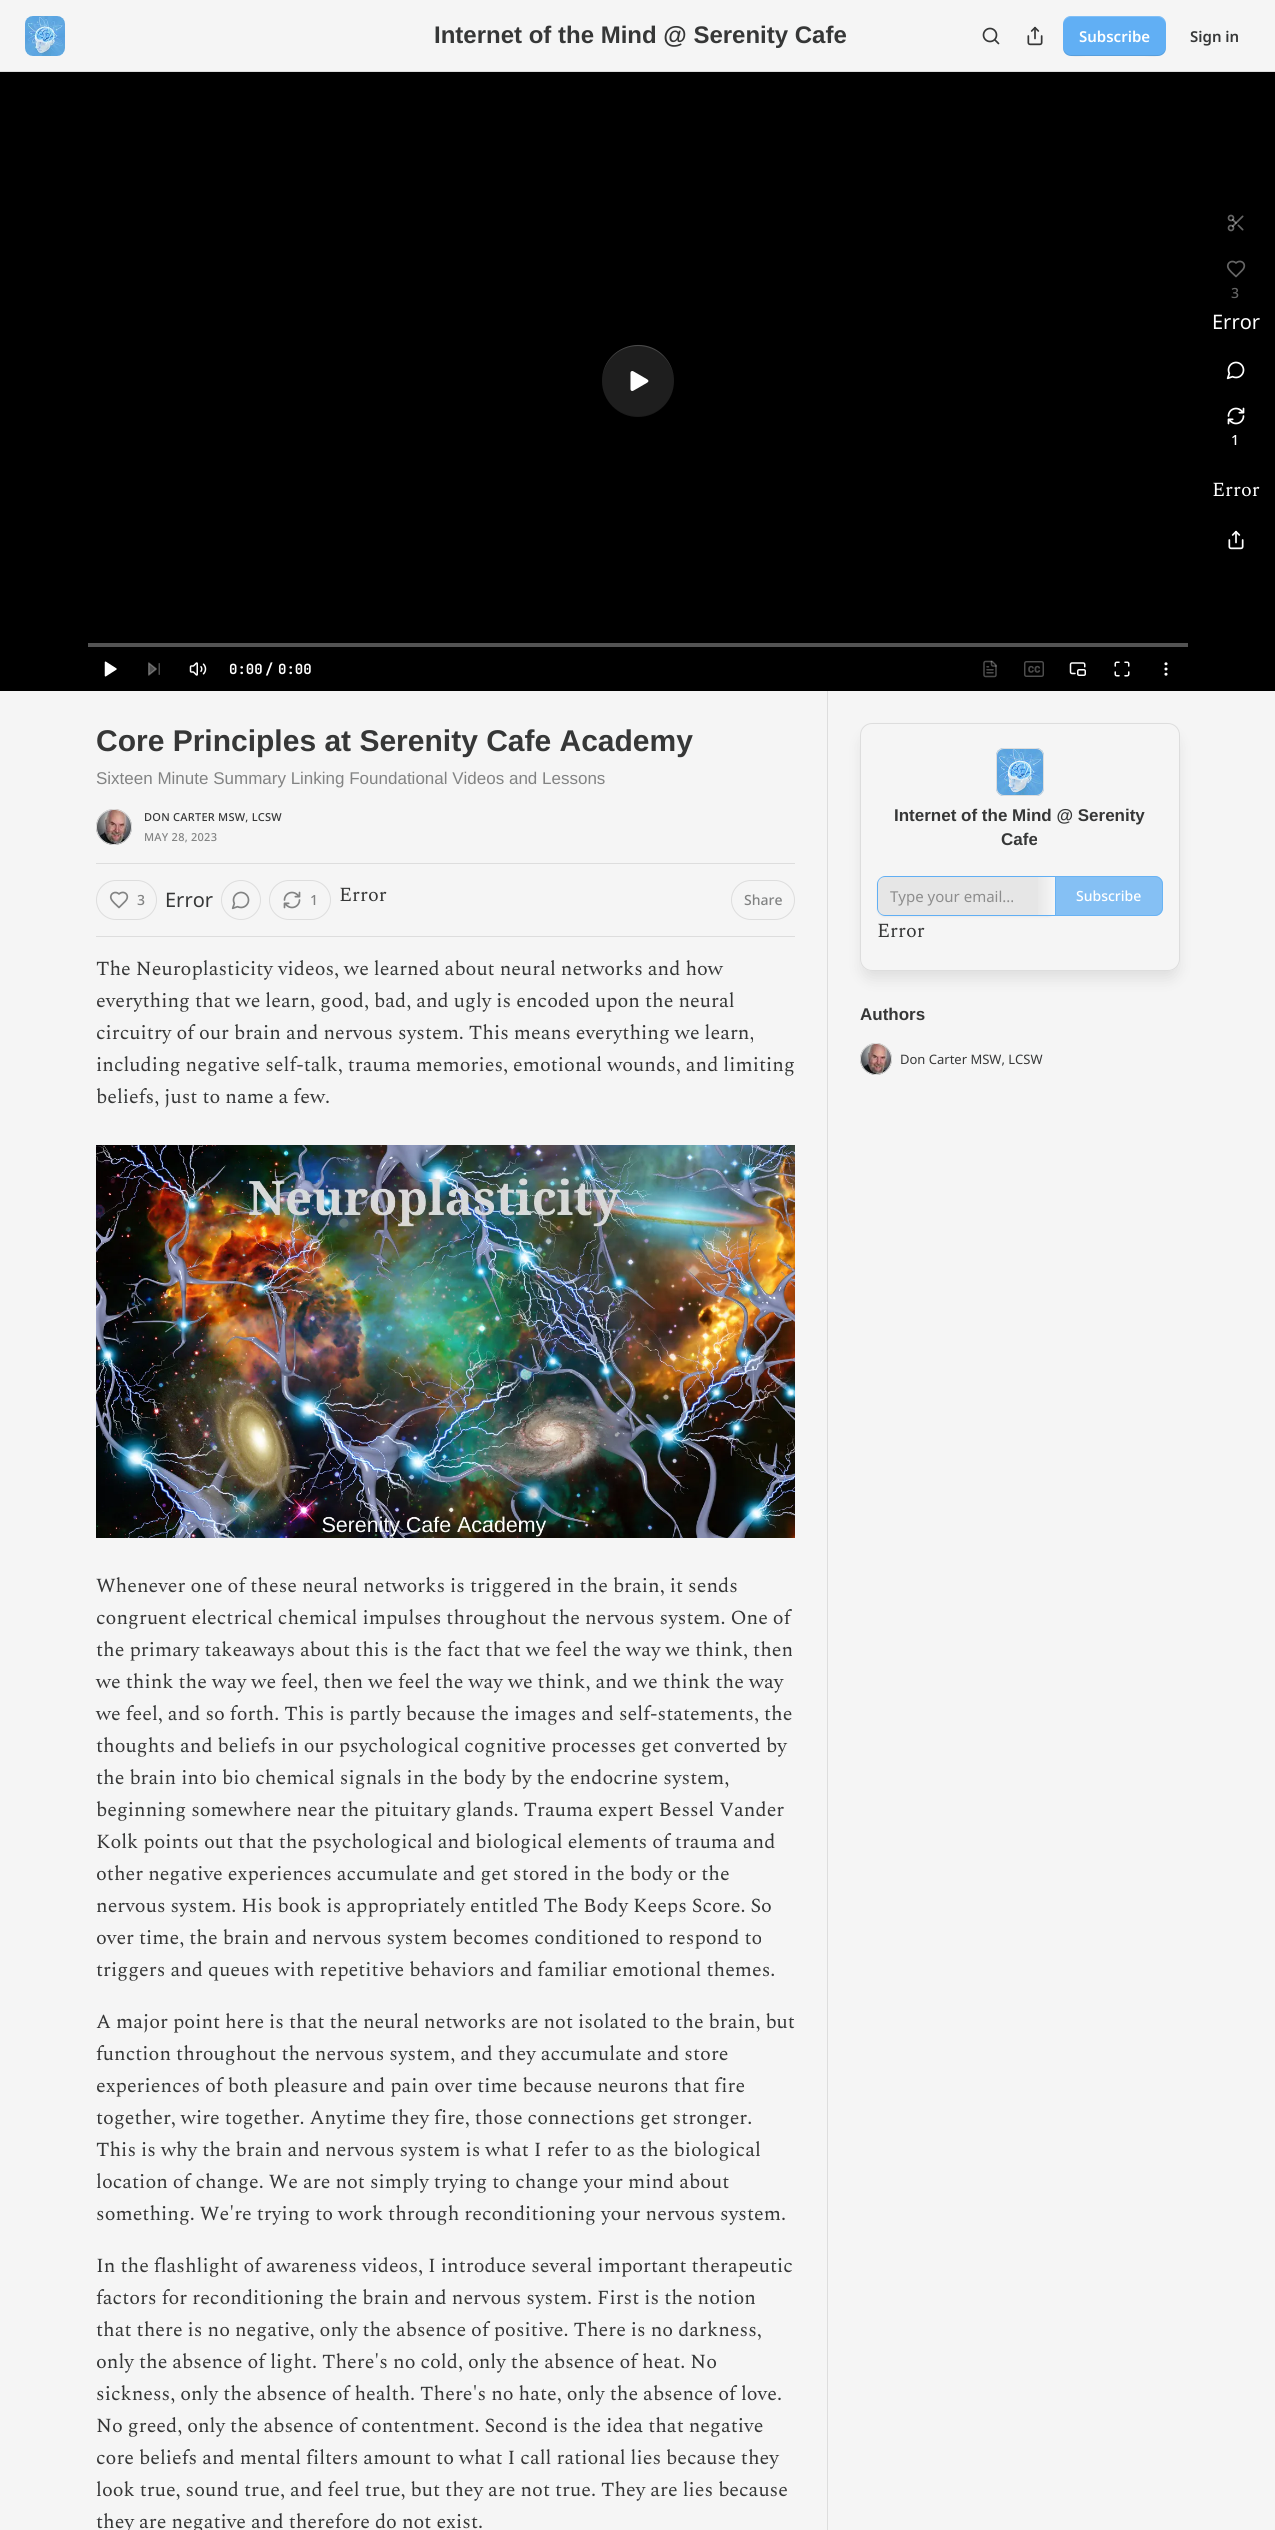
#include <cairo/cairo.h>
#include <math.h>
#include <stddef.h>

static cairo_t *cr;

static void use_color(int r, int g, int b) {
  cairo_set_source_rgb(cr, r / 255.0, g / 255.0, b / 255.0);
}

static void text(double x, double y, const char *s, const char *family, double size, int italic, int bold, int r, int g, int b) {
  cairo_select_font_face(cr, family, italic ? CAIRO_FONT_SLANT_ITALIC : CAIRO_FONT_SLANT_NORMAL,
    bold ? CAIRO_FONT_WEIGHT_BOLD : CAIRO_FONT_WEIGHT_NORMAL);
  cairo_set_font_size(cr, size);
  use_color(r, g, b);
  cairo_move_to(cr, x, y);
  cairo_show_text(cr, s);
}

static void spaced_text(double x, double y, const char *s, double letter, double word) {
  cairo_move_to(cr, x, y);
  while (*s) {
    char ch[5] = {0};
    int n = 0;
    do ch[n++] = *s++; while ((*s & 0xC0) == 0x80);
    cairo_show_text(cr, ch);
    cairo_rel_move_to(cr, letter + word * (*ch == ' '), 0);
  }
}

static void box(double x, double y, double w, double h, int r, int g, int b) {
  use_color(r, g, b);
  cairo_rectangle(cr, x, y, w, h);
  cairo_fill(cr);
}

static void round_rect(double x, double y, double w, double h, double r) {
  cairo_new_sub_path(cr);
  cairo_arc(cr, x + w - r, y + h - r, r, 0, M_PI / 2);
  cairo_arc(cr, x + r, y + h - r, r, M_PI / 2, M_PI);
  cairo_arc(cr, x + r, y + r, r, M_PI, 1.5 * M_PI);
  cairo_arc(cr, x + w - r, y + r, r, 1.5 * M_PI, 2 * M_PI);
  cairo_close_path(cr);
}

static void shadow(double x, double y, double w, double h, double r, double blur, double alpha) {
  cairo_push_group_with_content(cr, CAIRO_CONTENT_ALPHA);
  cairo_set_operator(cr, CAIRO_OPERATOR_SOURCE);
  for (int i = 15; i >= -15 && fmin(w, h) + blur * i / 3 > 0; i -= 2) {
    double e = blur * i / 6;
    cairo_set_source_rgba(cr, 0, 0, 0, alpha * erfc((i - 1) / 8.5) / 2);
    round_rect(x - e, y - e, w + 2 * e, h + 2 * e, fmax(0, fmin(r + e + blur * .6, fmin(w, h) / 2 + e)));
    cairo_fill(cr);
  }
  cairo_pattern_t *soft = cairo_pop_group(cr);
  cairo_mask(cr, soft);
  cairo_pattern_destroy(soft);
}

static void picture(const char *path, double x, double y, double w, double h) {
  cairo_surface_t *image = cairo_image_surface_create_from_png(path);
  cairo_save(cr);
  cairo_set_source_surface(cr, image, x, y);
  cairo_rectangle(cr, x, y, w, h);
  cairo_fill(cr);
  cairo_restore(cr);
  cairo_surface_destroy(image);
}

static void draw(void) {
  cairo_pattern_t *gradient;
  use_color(245, 245, 245);
  cairo_paint(cr);
  box(0, 71, 1275, 1, 221, 221, 221);
  use_color(255, 255, 255);
  round_rect(25, 16, 40, 40, 8);
  cairo_fill(cr);
  picture("img_01.png", 25, 16, 40, 40);
  cairo_arc(cr, 990, 35, 6.5, 0, 2 * M_PI);
  use_color(54, 55, 55);
  cairo_set_line_width(cr, 1.7);
  cairo_stroke(cr);
  cairo_new_path(cr);
  cairo_move_to(cr, 998.5, 43.5);
  cairo_line_to(cr, 995, 40);
  cairo_set_line_cap(cr, CAIRO_LINE_CAP_ROUND);
  cairo_set_line_join(cr, CAIRO_LINE_JOIN_ROUND);
  cairo_stroke(cr);
  picture("img_02.png", 1027, 26, 16, 20);
  use_color(97, 175, 244);
  round_rect(1063, 16, 103, 40, 8);
  cairo_fill(cr);
  cairo_set_source_rgba(cr, 0, 0, 0, 0.1);
  cairo_new_path(cr);
  cairo_move_to(cr, 1063, 47);
  cairo_curve_to(cr, 1063, 59, 1077, 56, 1086, 56);
  cairo_line_to(cr, 1144, 56);
  cairo_curve_to(cr, 1152, 56, 1166, 59, 1166, 47);
  cairo_curve_to(cr, 1166, 51, 1162, 55, 1158, 55);
  cairo_line_to(cr, 1071, 55);
  cairo_curve_to(cr, 1067, 55, 1063, 51, 1063, 47);
  cairo_close_path(cr);
  cairo_fill(cr);
  cairo_set_source_rgba(cr, 1, 1, 1, 0.2);
  cairo_new_path(cr);
  cairo_move_to(cr, 1071, 17);
  cairo_line_to(cr, 1158, 17);
  cairo_curve_to(cr, 1162, 17, 1166, 21, 1166, 25);
  cairo_curve_to(cr, 1166, 13, 1152, 16, 1144, 16);
  cairo_line_to(cr, 1086, 16);
  cairo_curve_to(cr, 1077, 16, 1063, 13, 1063, 25);
  cairo_curve_to(cr, 1063, 21, 1067, 17, 1071, 17);
  cairo_close_path(cr);
  cairo_fill(cr);
  box(0, 72, 1275, 619, 0, 0, 0);
  picture("img_03.png", 1227, 214, 17, 18);
  cairo_new_path(cr);
  cairo_move_to(cr, 1242, 270.5);
  cairo_curve_to(cr, 1248, 264.5, 1241, 258.5, 1236, 263);
  cairo_curve_to(cr, 1232.5, 259.5, 1226.5, 262.5, 1228, 267.5);
  cairo_curve_to(cr, 1229, 270.5, 1234, 274.5, 1236, 276.5);
  cairo_close_path(cr);
  use_color(102, 102, 102);
  cairo_stroke(cr);
  picture("img_04.png", 1226, 361, 19, 19);
  picture("img_05.png", 1227, 407, 18, 18);
  picture("img_06.png", 1228, 530, 16, 20);
  use_color(30, 30, 30);
  cairo_arc(cr, 638, 381, 36, 0, 2 * M_PI);
  cairo_fill(cr);
  cairo_set_source_rgba(cr, 0, 0, 0, 0.1);
  cairo_new_path(cr);
  cairo_move_to(cr, 602, 381);
  cairo_curve_to(cr, 602, 416, 648, 431, 668, 401);
  cairo_curve_to(cr, 672, 395, 674, 388, 674, 381);
  cairo_curve_to(cr, 674, 400, 658, 416, 638, 416);
  cairo_curve_to(cr, 618, 416, 602, 400, 602, 381);
  cairo_close_path(cr);
  cairo_fill(cr);
  cairo_set_source_rgba(cr, 1, 1, 1, 0.2);
  cairo_new_path(cr);
  cairo_move_to(cr, 638, 346);
  cairo_curve_to(cr, 658, 346, 674, 362, 674, 381);
  cairo_curve_to(cr, 674, 374, 672, 367, 668, 361);
  cairo_curve_to(cr, 648, 331, 602, 346, 602, 381);
  cairo_curve_to(cr, 602, 362, 618, 346, 638, 346);
  cairo_close_path(cr);
  cairo_fill(cr);
  picture("img_07.png", 630, 371, 19, 20);
  box(88, 643, 1100, 4, 83, 83, 83);
  picture("img_08.png", 104, 661, 13, 16);
  picture("img_09.png", 148, 662, 12, 14);
  picture("img_10.png", 189, 662, 18, 14);
  picture("img_11.png", 983, 660, 14, 18);
  picture("img_12.png", 1024, 661, 20, 16);
  picture("img_13.png", 1069, 662, 17, 14);
  picture("img_14.png", 1114, 661, 16, 16);
  cairo_arc(cr, 1166, 669, 0.8, 0, 2 * M_PI);
  use_color(255, 255, 255);
  cairo_set_line_width(cr, 1.5);
  cairo_set_line_cap(cr, CAIRO_LINE_CAP_BUTT);
  cairo_set_line_join(cr, CAIRO_LINE_JOIN_MITER);
  cairo_stroke(cr);
  cairo_arc(cr, 1166, 663.8, 0.8, 0, 2 * M_PI);
  cairo_stroke(cr);
  cairo_arc(cr, 1166, 674.2, 0.8, 0, 2 * M_PI);
  cairo_stroke(cr);
  cairo_arc(cr, 114, 827, 17.5, 0, 2 * M_PI);
  use_color(221, 221, 221);
  cairo_set_line_width(cr, 1);
  cairo_stroke(cr);
  picture("img_15.png", 96, 809, 36, 36);
  cairo_arc(cr, 114, 827, 17.5, 0, 2 * M_PI);
  cairo_stroke(cr);
  box(96, 863, 699, 1, 221, 221, 221);
  box(96, 936, 699, 1, 221, 221, 221);
  round_rect(96.5, 880.5, 60, 39, 19.5);
  cairo_stroke(cr);
  cairo_new_path(cr);
  cairo_move_to(cr, 125, 901.5);
  cairo_curve_to(cr, 131, 895.5, 124, 889.5, 119, 894);
  cairo_curve_to(cr, 115.5, 890.5, 109.5, 893.5, 111, 898.5);
  cairo_curve_to(cr, 112, 901.5, 117, 905.5, 119, 907.5);
  cairo_close_path(cr);
  use_color(130, 131, 131);
  cairo_set_line_width(cr, 1.7);
  cairo_set_line_cap(cr, CAIRO_LINE_CAP_ROUND);
  cairo_set_line_join(cr, CAIRO_LINE_JOIN_ROUND);
  cairo_stroke(cr);
  cairo_arc(cr, 241, 900, 19.5, 0, 2 * M_PI);
  use_color(221, 221, 221);
  cairo_set_line_width(cr, 1);
  cairo_set_line_cap(cr, CAIRO_LINE_CAP_BUTT);
  cairo_set_line_join(cr, CAIRO_LINE_JOIN_MITER);
  cairo_stroke(cr);
  picture("img_16.png", 231, 891, 19, 19);
  round_rect(269.5, 880.5, 61, 39, 19.5);
  cairo_stroke(cr);
  picture("img_17.png", 283, 891, 18, 18);
  round_rect(731.5, 880.5, 63, 39, 19.5);
  cairo_stroke(cr);
  picture("img_18.png", 96, 1145, 699, 393);
  box(827, 691, 1, 1839, 221, 221, 221);
  cairo_save(cr);
  cairo_set_fill_rule(cr, CAIRO_FILL_RULE_EVEN_ODD);
  cairo_new_path(cr);
  cairo_move_to(cr, 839, 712);
  cairo_line_to(cr, 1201, 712);
  cairo_line_to(cr, 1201, 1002);
  cairo_line_to(cr, 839, 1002);
  cairo_close_path(cr);
  cairo_move_to(cr, 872, 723);
  cairo_line_to(cr, 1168, 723);
  cairo_curve_to(cr, 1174.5, 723, 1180, 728.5, 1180, 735);
  cairo_line_to(cr, 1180, 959);
  cairo_curve_to(cr, 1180, 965.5, 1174.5, 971, 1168, 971);
  cairo_line_to(cr, 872, 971);
  cairo_curve_to(cr, 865.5, 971, 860, 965.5, 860, 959);
  cairo_line_to(cr, 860, 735);
  cairo_curve_to(cr, 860, 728.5, 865.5, 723, 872, 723);
  cairo_close_path(cr);
  cairo_clip(cr);
  use_color(0, 0, 0);
  shadow(863, 736, 314, 242, 9, 7.5, 0.1);
  cairo_restore(cr);
  round_rect(860.5, 723.5, 319, 247, 11.5);
  cairo_stroke(cr);
  picture("img_19.png", 996, 748, 48, 48);
  round_rect(996.5, 748.5, 47, 47, 7.5);
  cairo_stroke(cr);
  use_color(0, 0, 0);
  shadow(877, 877, 178, 40, 8, 1, 0.05);
  use_color(230, 230, 230);
  cairo_new_path(cr);
  cairo_move_to(cr, 885, 877);
  cairo_line_to(cr, 1055, 877);
  cairo_line_to(cr, 1055, 915);
  cairo_line_to(cr, 885, 915);
  cairo_curve_to(cr, 881, 915, 878, 912, 878, 908);
  cairo_line_to(cr, 878, 884);
  cairo_curve_to(cr, 878, 880, 881, 877, 885, 877);
  cairo_close_path(cr);
  cairo_fill(cr);
  use_color(97, 175, 244);
  cairo_set_fill_rule(cr, CAIRO_FILL_RULE_EVEN_ODD);
  cairo_new_path(cr);
  cairo_move_to(cr, 885, 876);
  cairo_line_to(cr, 1055, 876);
  cairo_line_to(cr, 1055, 916);
  cairo_line_to(cr, 885, 916);
  cairo_curve_to(cr, 881, 916, 877, 912, 877, 908);
  cairo_line_to(cr, 877, 884);
  cairo_curve_to(cr, 877, 880, 881, 876, 885, 876);
  cairo_close_path(cr);
  cairo_move_to(cr, 885, 877);
  cairo_line_to(cr, 1055, 877);
  cairo_line_to(cr, 1055, 915);
  cairo_line_to(cr, 885, 915);
  cairo_curve_to(cr, 881, 915, 878, 912, 878, 908);
  cairo_line_to(cr, 878, 884);
  cairo_curve_to(cr, 878, 880, 881, 877, 885, 877);
  cairo_close_path(cr);
  cairo_fill(cr);
  gradient = cairo_pattern_create_linear(1035, 896, 1055, 896);
  cairo_pattern_add_color_stop_rgba(gradient, 0, 0.902, 0.902, 0.902, 1);
  cairo_pattern_add_color_stop_rgba(gradient, 1, 0.965, 0.965, 0.965, 1);
  cairo_set_source(cr, gradient);
  cairo_pattern_destroy(gradient);
  cairo_rectangle(cr, 1038, 877, 17, 38);
  cairo_fill(cr);
  cairo_set_source_rgba(cr, 0.38, 0.686, 0.957, 0.75);
  cairo_new_path(cr);
  cairo_move_to(cr, 1055, 876);
  cairo_line_to(cr, 1155, 876);
  cairo_curve_to(cr, 1159.5, 876, 1163, 879.5, 1163, 884);
  cairo_line_to(cr, 1163, 908);
  cairo_curve_to(cr, 1163, 912.5, 1159.5, 916, 1155, 916);
  cairo_line_to(cr, 1055, 916);
  cairo_close_path(cr);
  cairo_fill(cr);
  cairo_new_path(cr);
  cairo_move_to(cr, 1055.5, 876.5);
  cairo_line_to(cr, 1155, 876.5);
  cairo_curve_to(cr, 1159, 876.5, 1162.5, 880, 1162.5, 884);
  cairo_line_to(cr, 1162.5, 908);
  cairo_curve_to(cr, 1162.5, 912, 1159, 915.5, 1155, 915.5);
  cairo_line_to(cr, 1055.5, 915.5);
  cairo_close_path(cr);
  cairo_stroke(cr);
  cairo_arc(cr, 876, 1059, 15.5, 0, 2 * M_PI);
  use_color(221, 221, 221);
  cairo_stroke(cr);
  picture("img_20.png", 860, 1043, 32, 32);
  cairo_arc(cr, 876, 1059, 15.5, 0, 2 * M_PI);
  cairo_stroke(cr);
  text(434, 43, "Internet of the Mind @ Serenity Cafe", "Liberation Sans", 24, 0, 1, 54, 55, 55);
  text(1079, 42, "Subscribe", "Noto Sans SemiBold", 15, 0, 0, 255, 255, 255);
  text(1190, 42, "Sign in", "Noto Sans SemiBold", 15, 0, 0, 54, 55, 55);
  text(1231, 298, "3", "Noto Sans Medium", 14, 0, 0, 102, 102, 102);
  text(1212, 329, "Error", "Noto Sans", 20, 0, 0, 255, 255, 255);
  text(1231, 445, "1", "Noto Sans Medium", 14, 0, 0, 255, 255, 255);
  text(1212, 496, "Error", "Spectral", 20, 0, 0, 255, 255, 255);
  text(229, 674, "0:00", "JetBrains Mono", 14, 0, 1, 255, 255, 255);
  text(265, 674, "/", "JetBrains Mono", 14, 0, 1, 255, 255, 255);
  text(278, 674, "0:00", "JetBrains Mono", 14, 0, 1, 255, 255, 255);
  text(96, 751, "Core Principles at Serenity Cafe Academy", "Liberation Sans", 30, 0, 1, 54, 55, 55);
  text(96, 784, "Sixteen Minute Summary Linking Foundational Videos and Lessons", "Liberation Sans", 17, 0, 0, 130, 131, 131);
  cairo_select_font_face(cr, "Noto Sans Medium", CAIRO_FONT_SLANT_NORMAL, CAIRO_FONT_WEIGHT_NORMAL);
  cairo_set_font_size(cr, 11);
  use_color(54, 55, 55);
  spaced_text(144, 821, "DON CARTER MSW, LCSW", 0.25, 0);
  use_color(130, 131, 131);
  spaced_text(144, 841, "MAY 28, 2023", 0.25, 0);
  text(137, 905, "3", "Noto Sans Medium", 14, 0, 0, 130, 131, 131);
  text(165, 907, "Error", "Noto Sans", 20, 0, 0, 54, 55, 55);
  text(310, 905, "1", "Noto Sans Medium", 14, 0, 0, 130, 131, 131);
  text(339, 901, "Error", "Spectral", 20, 0, 0, 54, 55, 55);
  text(744, 905, "Share", "Noto Sans Medium", 14, 0, 0, 130, 131, 131);
  text(96, 975, "The Neuroplasticity videos, we learned about neural networks and how", "Spectral", 20, 0, 0, 54, 55, 55);
  text(96, 1007, "everything that we learn, good, bad, and ugly is encoded upon the neural", "Spectral", 20, 0, 0, 54, 55, 55);
  text(96, 1039, "circuitry of our brain and nervous system. This means everything we learn,", "Spectral", 20, 0, 0, 54, 55, 55);
  text(96, 1071, "including negative self-talk, trauma memories, emotional wounds, and limiting", "Spectral", 20, 0, 0, 54, 55, 55);
  text(96, 1103, "beliefs, just to name a few.", "Spectral", 20, 0, 0, 54, 55, 55);
  text(96, 1592, "Whenever one of these neural networks is triggered in the brain, it sends", "Spectral", 20, 0, 0, 54, 55, 55);
  text(96, 1624, "congruent electrical chemical impulses throughout the nervous system. One of", "Spectral", 20, 0, 0, 54, 55, 55);
  text(96, 1656, "the primary takeaways about this is the fact that we feel the way we think, then", "Spectral", 20, 0, 0, 54, 55, 55);
  text(96, 1688, "we think the way we feel, then we feel the way we think, and we think the way", "Spectral", 20, 0, 0, 54, 55, 55);
  text(96, 1720, "we feel, and so forth. This is partly because the images and self-statements, the", "Spectral", 20, 0, 0, 54, 55, 55);
  text(96, 1752, "thoughts and beliefs in our psychological cognitive processes get converted by", "Spectral", 20, 0, 0, 54, 55, 55);
  text(96, 1784, "the brain into bio chemical signals in the body by the endocrine system,", "Spectral", 20, 0, 0, 54, 55, 55);
  text(96, 1816, "beginning somewhere near the pituitary glands. Trauma expert Bessel Vander", "Spectral", 20, 0, 0, 54, 55, 55);
  text(96, 1848, "Kolk points out that the psychological and biological elements of trauma and", "Spectral", 20, 0, 0, 54, 55, 55);
  text(96, 1880, "other negative experiences accumulate and get stored in the body or the", "Spectral", 20, 0, 0, 54, 55, 55);
  text(96, 1912, "nervous system. His book is appropriately entitled The Body Keeps Score. So", "Spectral", 20, 0, 0, 54, 55, 55);
  text(96, 1944, "over time, the brain and nervous system becomes conditioned to respond to", "Spectral", 20, 0, 0, 54, 55, 55);
  text(96, 1976, "triggers and queues with repetitive behaviors and familiar emotional themes.", "Spectral", 20, 0, 0, 54, 55, 55);
  text(96, 2028, "A major point here is that the neural networks are not isolated to the brain, but", "Spectral", 20, 0, 0, 54, 55, 55);
  text(96, 2060, "function throughout the nervous system, and they accumulate and store", "Spectral", 20, 0, 0, 54, 55, 55);
  text(96, 2092, "experiences of both pleasure and pain over time because neurons that fire", "Spectral", 20, 0, 0, 54, 55, 55);
  text(96, 2124, "together, wire together. Anytime they fire, those connections get stronger.", "Spectral", 20, 0, 0, 54, 55, 55);
  text(96, 2156, "This is why the brain and nervous system is what I refer to as the biological", "Spectral", 20, 0, 0, 54, 55, 55);
  text(96, 2188, "location of change. We are not simply trying to change your mind about", "Spectral", 20, 0, 0, 54, 55, 55);
  text(96, 2220, "something. We're trying to work through reconditioning your nervous system.", "Spectral", 20, 0, 0, 54, 55, 55);
  text(96, 2272, "In the flashlight of awareness videos, I introduce several important therapeutic", "Spectral", 20, 0, 0, 54, 55, 55);
  text(96, 2304, "factors for reconditioning the brain and nervous system. First is the notion", "Spectral", 20, 0, 0, 54, 55, 55);
  text(96, 2336, "that there is no negative, only the absence of positive. There is no darkness,", "Spectral", 20, 0, 0, 54, 55, 55);
  text(96, 2368, "only the absence of light. There's no cold, only the absence of heat. No", "Spectral", 20, 0, 0, 54, 55, 55);
  text(96, 2400, "sickness, only the absence of health. There's no hate, only the absence of love.", "Spectral", 20, 0, 0, 54, 55, 55);
  text(96, 2432, "No greed, only the absence of contentment. Second is the idea that negative", "Spectral", 20, 0, 0, 54, 55, 55);
  text(96, 2464, "core beliefs and mental filters amount to what I call rational lies because they", "Spectral", 20, 0, 0, 54, 55, 55);
  text(96, 2496, "look true, sound true, and feel true, but they are not true. They are lies because", "Spectral", 20, 0, 0, 54, 55, 55);
  text(96, 2528, "they are negative and therefore do not exist.", "Spectral", 20, 0, 0, 54, 55, 55);
  text(894, 821, "Internet of the Mind @ Serenity", "Liberation Sans", 17, 0, 1, 54, 55, 55);
  text(1001, 845, "Cafe", "Liberation Sans", 17, 0, 1, 54, 55, 55);
  text(890, 902, "Type your email...", "Noto Sans", 15, 0, 0, 141, 141, 141);
  text(1076, 901, "Subscribe", "Noto Sans Medium", 14, 0, 0, 255, 255, 255);
  text(877, 937, "Error", "Spectral", 20, 0, 0, 54, 55, 55);
  text(860, 1020, "Authors", "Liberation Sans", 17, 0, 1, 54, 55, 55);
  text(900, 1064, "Don Carter MSW, LCSW", "Noto Sans", 13, 0, 0, 54, 55, 55);
}

int main(void) {
  cairo_surface_t *surface = cairo_image_surface_create(CAIRO_FORMAT_RGB24, 1275, 2530);
  cr = cairo_create(surface);
  cairo_font_options_t *options = cairo_font_options_create();
  cairo_font_options_set_hint_metrics(options, CAIRO_HINT_METRICS_OFF);
  cairo_font_options_set_hint_style(options, CAIRO_HINT_STYLE_NONE);
  cairo_set_font_options(cr, options);
  cairo_set_miter_limit(cr, 4);
  draw();
  cairo_surface_write_to_png(surface, "out.png");
  cairo_font_options_destroy(options);
  cairo_destroy(cr);
  cairo_surface_destroy(surface);
  return 0;
}
